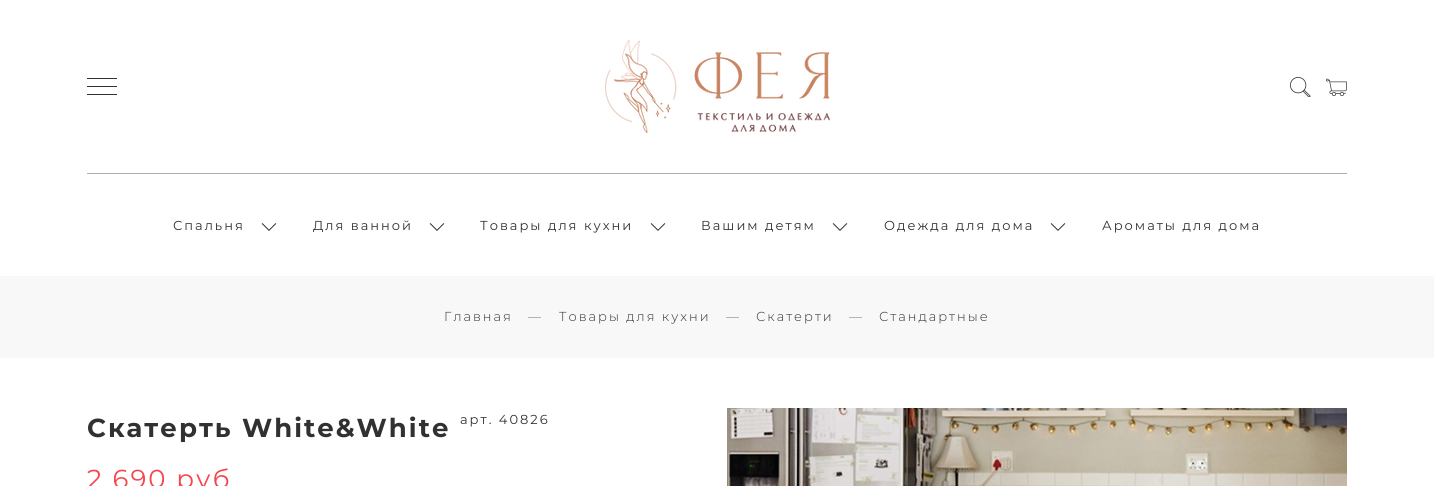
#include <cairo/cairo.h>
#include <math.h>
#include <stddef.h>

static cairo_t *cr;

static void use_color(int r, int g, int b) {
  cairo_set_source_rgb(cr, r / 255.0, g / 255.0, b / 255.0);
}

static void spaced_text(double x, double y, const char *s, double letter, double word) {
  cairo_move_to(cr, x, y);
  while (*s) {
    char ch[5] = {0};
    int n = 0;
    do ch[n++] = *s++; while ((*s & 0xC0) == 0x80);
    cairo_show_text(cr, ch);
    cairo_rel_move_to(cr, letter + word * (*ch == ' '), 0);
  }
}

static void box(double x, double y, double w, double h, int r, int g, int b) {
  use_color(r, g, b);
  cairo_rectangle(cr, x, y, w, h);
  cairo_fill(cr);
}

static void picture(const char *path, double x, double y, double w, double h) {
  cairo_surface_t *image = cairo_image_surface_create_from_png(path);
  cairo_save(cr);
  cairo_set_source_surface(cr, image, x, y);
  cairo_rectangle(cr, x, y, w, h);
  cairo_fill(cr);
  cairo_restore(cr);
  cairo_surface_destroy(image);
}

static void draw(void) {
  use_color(255, 255, 255);
  cairo_paint(cr);
  box(87, 78, 30, 1, 49, 49, 49);
  box(87, 86, 30, 1, 49, 49, 49);
  box(87, 94, 30, 1, 49, 49, 49);
  picture("img_01.png", 605, 40, 225, 93);
  picture("img_02.png", 1290, 77, 21, 20);
  picture("img_03.png", 1326, 78, 21, 18);
  box(87, 173, 1260, 1, 175, 175, 175);
  picture("img_04.png", 261, 223, 16, 8);
  picture("img_04.png", 429, 223, 16, 8);
  picture("img_04.png", 650, 223, 16, 8);
  picture("img_04.png", 832, 223, 16, 8);
  picture("img_04.png", 1050, 223, 16, 8);
  box(0, 276, 1434, 82, 248, 248, 248);
  picture("img_05.png", 727, 408, 620, 78);
  cairo_select_font_face(cr, "Montserrat", CAIRO_FONT_SLANT_NORMAL, CAIRO_FONT_WEIGHT_NORMAL);
  cairo_set_font_size(cr, 13);
  use_color(49, 49, 49);
  spaced_text(173, 230, "Спальня", 2, 0);
  spaced_text(313, 230, "Для ванной", 2, 0);
  spaced_text(480, 230, "Товары для кухни", 2, 0);
  spaced_text(701, 230, "Вашим детям", 2, 0);
  spaced_text(884, 230, "Одежда для дома", 2, 0);
  spaced_text(1102, 230, "Ароматы для дома", 2, 0);
  cairo_select_font_face(cr, "Montserrat Light", CAIRO_FONT_SLANT_NORMAL, CAIRO_FONT_WEIGHT_NORMAL);
  spaced_text(444, 321, "Главная", 2, 0);
  use_color(109, 109, 109);
  spaced_text(528, 321, "—", 2, 0);
  use_color(49, 49, 49);
  spaced_text(559, 321, "Товары для кухни", 2, 0);
  use_color(109, 109, 109);
  spaced_text(726, 321, "—", 2, 0);
  use_color(49, 49, 49);
  spaced_text(756, 321, "Скатерти", 2, 0);
  use_color(109, 109, 109);
  spaced_text(849, 321, "—", 2, 0);
  use_color(49, 49, 49);
  spaced_text(879, 321, "Стандартные", 2, 0);
  cairo_select_font_face(cr, "Montserrat", CAIRO_FONT_SLANT_NORMAL, CAIRO_FONT_WEIGHT_BOLD);
  cairo_set_font_size(cr, 26);
  spaced_text(87, 437, "Скатерть White&White", 2, 0);
  cairo_select_font_face(cr, "Montserrat", CAIRO_FONT_SLANT_NORMAL, CAIRO_FONT_WEIGHT_NORMAL);
  cairo_set_font_size(cr, 13);
  spaced_text(460, 424, "арт. 40826", 2, 0);
  cairo_set_font_size(cr, 26);
  use_color(247, 69, 77);
  spaced_text(87, 488, "2 690 руб", 2, 0);
}

int main(void) {
  cairo_surface_t *surface = cairo_image_surface_create(CAIRO_FORMAT_RGB24, 1434, 486);
  cr = cairo_create(surface);
  cairo_font_options_t *options = cairo_font_options_create();
  cairo_font_options_set_hint_metrics(options, CAIRO_HINT_METRICS_OFF);
  cairo_font_options_set_hint_style(options, CAIRO_HINT_STYLE_NONE);
  cairo_set_font_options(cr, options);
  cairo_set_miter_limit(cr, 4);
  draw();
  cairo_surface_write_to_png(surface, "out.png");
  cairo_font_options_destroy(options);
  cairo_destroy(cr);
  cairo_surface_destroy(surface);
  return 0;
}
